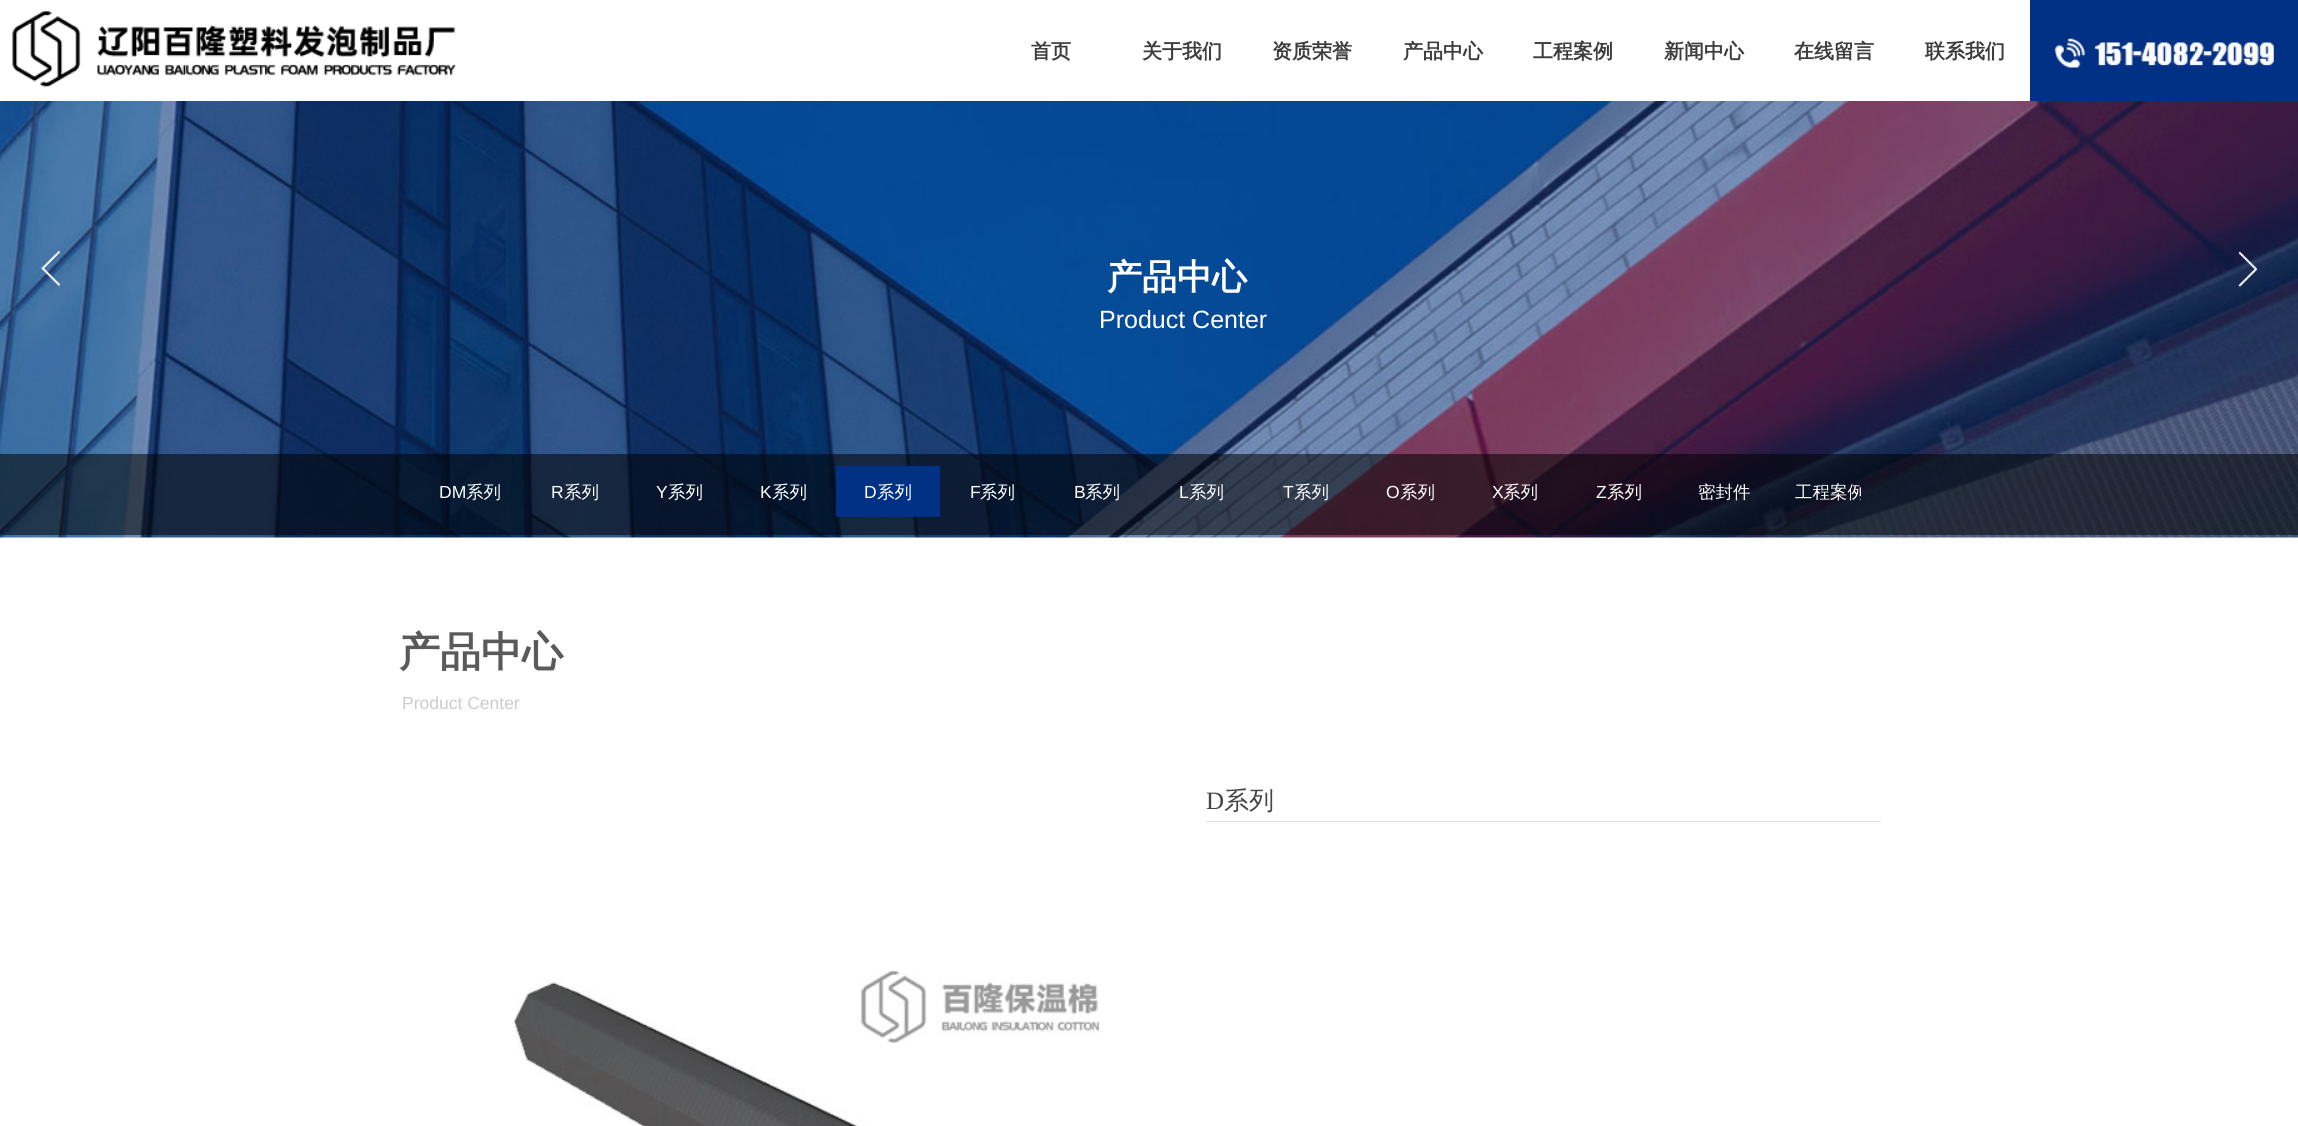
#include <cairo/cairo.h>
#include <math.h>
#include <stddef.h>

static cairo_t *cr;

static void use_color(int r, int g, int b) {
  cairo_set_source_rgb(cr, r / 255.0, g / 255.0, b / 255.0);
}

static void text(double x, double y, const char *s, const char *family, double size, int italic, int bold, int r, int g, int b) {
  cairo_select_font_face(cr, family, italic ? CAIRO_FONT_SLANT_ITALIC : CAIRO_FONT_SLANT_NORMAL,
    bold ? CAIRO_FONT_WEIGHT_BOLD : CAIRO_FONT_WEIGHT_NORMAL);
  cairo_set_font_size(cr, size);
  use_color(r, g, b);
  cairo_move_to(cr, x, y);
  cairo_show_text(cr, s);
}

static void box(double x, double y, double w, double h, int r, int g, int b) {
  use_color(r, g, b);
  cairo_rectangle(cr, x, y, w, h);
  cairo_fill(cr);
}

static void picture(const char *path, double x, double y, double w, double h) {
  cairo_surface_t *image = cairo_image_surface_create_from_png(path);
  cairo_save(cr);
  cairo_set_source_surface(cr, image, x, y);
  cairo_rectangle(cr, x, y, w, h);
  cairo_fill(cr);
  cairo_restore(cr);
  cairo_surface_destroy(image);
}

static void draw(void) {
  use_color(255, 255, 255);
  cairo_paint(cr);
  picture("img_01.png", 12, 11, 444, 76);
  picture("img_02.png", 2030, 0, 268, 101);
  picture("img_03.png", 0, 101, 2298, 437);
  picture("img_04.png", 41, 250, 20, 37);
  picture("img_05.png", 2238, 251, 20, 36);
  cairo_set_source_rgba(cr, 0, 0, 0, 0.54);
  cairo_rectangle(cr, 0, 454, 2298, 81);
  cairo_fill(cr);
  box(836, 466, 104, 51, 1, 49, 133);
  box(1206, 821, 675, 1, 226, 226, 226);
  picture("img_06.png", 513, 969, 587, 157);
  text(1031, 58, "首页", "WenQuanYi Zen Hei", 20, 0, 1, 61, 61, 61);
  text(1142, 58, "关于我们", "WenQuanYi Zen Hei", 20, 0, 1, 61, 61, 61);
  text(1272, 58, "资质荣誉", "WenQuanYi Zen Hei", 20, 0, 1, 61, 61, 61);
  text(1403, 58, "产品中心", "WenQuanYi Zen Hei", 20, 0, 1, 61, 61, 61);
  text(1533, 58, "工程案例", "WenQuanYi Zen Hei", 20, 0, 1, 61, 61, 61);
  text(1664, 58, "新闻中心", "WenQuanYi Zen Hei", 20, 0, 1, 61, 61, 61);
  text(1794, 58, "在线留言", "WenQuanYi Zen Hei", 20, 0, 1, 61, 61, 61);
  text(1925, 58, "联系我们", "WenQuanYi Zen Hei", 20, 0, 1, 61, 61, 61);
  text(1107, 289, "产品中心", "WenQuanYi Zen Hei", 35, 0, 1, 255, 255, 255);
  text(1099, 328, "Product Center", "Liberation Sans", 25, 0, 0, 255, 255, 255);
  text(439, 498, "DM", "Liberation Sans", 17.5, 0, 0, 255, 255, 255);
  text(466, 498, "系列", "WenQuanYi Zen Hei Medium", 17.5, 0, 0, 255, 255, 255);
  text(551, 498, "R", "Liberation Sans", 17.5, 0, 0, 255, 255, 255);
  text(564, 498, "系列", "WenQuanYi Zen Hei Medium", 17.5, 0, 0, 255, 255, 255);
  text(656, 498, "Y", "Liberation Sans", 17.5, 0, 0, 255, 255, 255);
  text(668, 498, "系列", "WenQuanYi Zen Hei Medium", 17.5, 0, 0, 255, 255, 255);
  text(760, 498, "K", "Liberation Sans", 17.5, 0, 0, 255, 255, 255);
  text(772, 498, "系列", "WenQuanYi Zen Hei Medium", 17.5, 0, 0, 255, 255, 255);
  text(864, 498, "D", "Liberation Sans", 17.5, 0, 0, 255, 255, 255);
  text(877, 498, "系列", "WenQuanYi Zen Hei Medium", 17.5, 0, 0, 255, 255, 255);
  text(970, 498, "F", "Liberation Sans", 17.5, 0, 0, 255, 255, 255);
  text(980, 498, "系列", "WenQuanYi Zen Hei Medium", 17.5, 0, 0, 255, 255, 255);
  text(1074, 498, "B", "Liberation Sans", 17.5, 0, 0, 255, 255, 255);
  text(1085, 498, "系列", "WenQuanYi Zen Hei Medium", 17.5, 0, 0, 255, 255, 255);
  text(1179, 498, "L", "Liberation Sans", 17.5, 0, 0, 255, 255, 255);
  text(1189, 498, "系列", "WenQuanYi Zen Hei Medium", 17.5, 0, 0, 255, 255, 255);
  text(1283, 498, "T", "Liberation Sans", 17.5, 0, 0, 255, 255, 255);
  text(1294, 498, "系列", "WenQuanYi Zen Hei Medium", 17.5, 0, 0, 255, 255, 255);
  text(1386, 498, "O", "Liberation Sans", 17.5, 0, 0, 255, 255, 255);
  text(1400, 498, "系列", "WenQuanYi Zen Hei Medium", 17.5, 0, 0, 255, 255, 255);
  text(1492, 498, "X", "Liberation Sans", 17.5, 0, 0, 255, 255, 255);
  text(1503, 498, "系列", "WenQuanYi Zen Hei Medium", 17.5, 0, 0, 255, 255, 255);
  text(1596, 498, "Z", "Liberation Sans", 17.5, 0, 0, 255, 255, 255);
  text(1607, 498, "系列", "WenQuanYi Zen Hei Medium", 17.5, 0, 0, 255, 255, 255);
  text(1698, 498, "密封件", "WenQuanYi Zen Hei Medium", 17.5, 0, 0, 255, 255, 255);
  cairo_save(cr);
  cairo_rectangle(cr, 1795, 460, 66, 63);
  cairo_clip(cr);
  text(1795, 498, "工程案例", "WenQuanYi Zen Hei Medium", 17.5, 0, 0, 255, 255, 255);
  cairo_restore(cr);
  text(399, 666, "产品中心", "WenQuanYi Zen Hei", 41, 0, 1, 90, 90, 90);
  text(402, 709, "Product Center", "Liberation Sans", 17.5, 0, 0, 204, 204, 204);
  text(1206, 809, "D", "Liberation Serif", 25, 0, 0, 69, 69, 69);
  text(1224, 809, "系列", "WenQuanYi Zen Hei Medium", 25, 0, 0, 69, 69, 69);
}

int main(void) {
  cairo_surface_t *surface = cairo_image_surface_create(CAIRO_FORMAT_RGB24, 2298, 1126);
  cr = cairo_create(surface);
  cairo_font_options_t *options = cairo_font_options_create();
  cairo_font_options_set_hint_metrics(options, CAIRO_HINT_METRICS_OFF);
  cairo_font_options_set_hint_style(options, CAIRO_HINT_STYLE_NONE);
  cairo_set_font_options(cr, options);
  cairo_set_miter_limit(cr, 4);
  draw();
  cairo_surface_write_to_png(surface, "out.png");
  cairo_font_options_destroy(options);
  cairo_destroy(cr);
  cairo_surface_destroy(surface);
  return 0;
}
